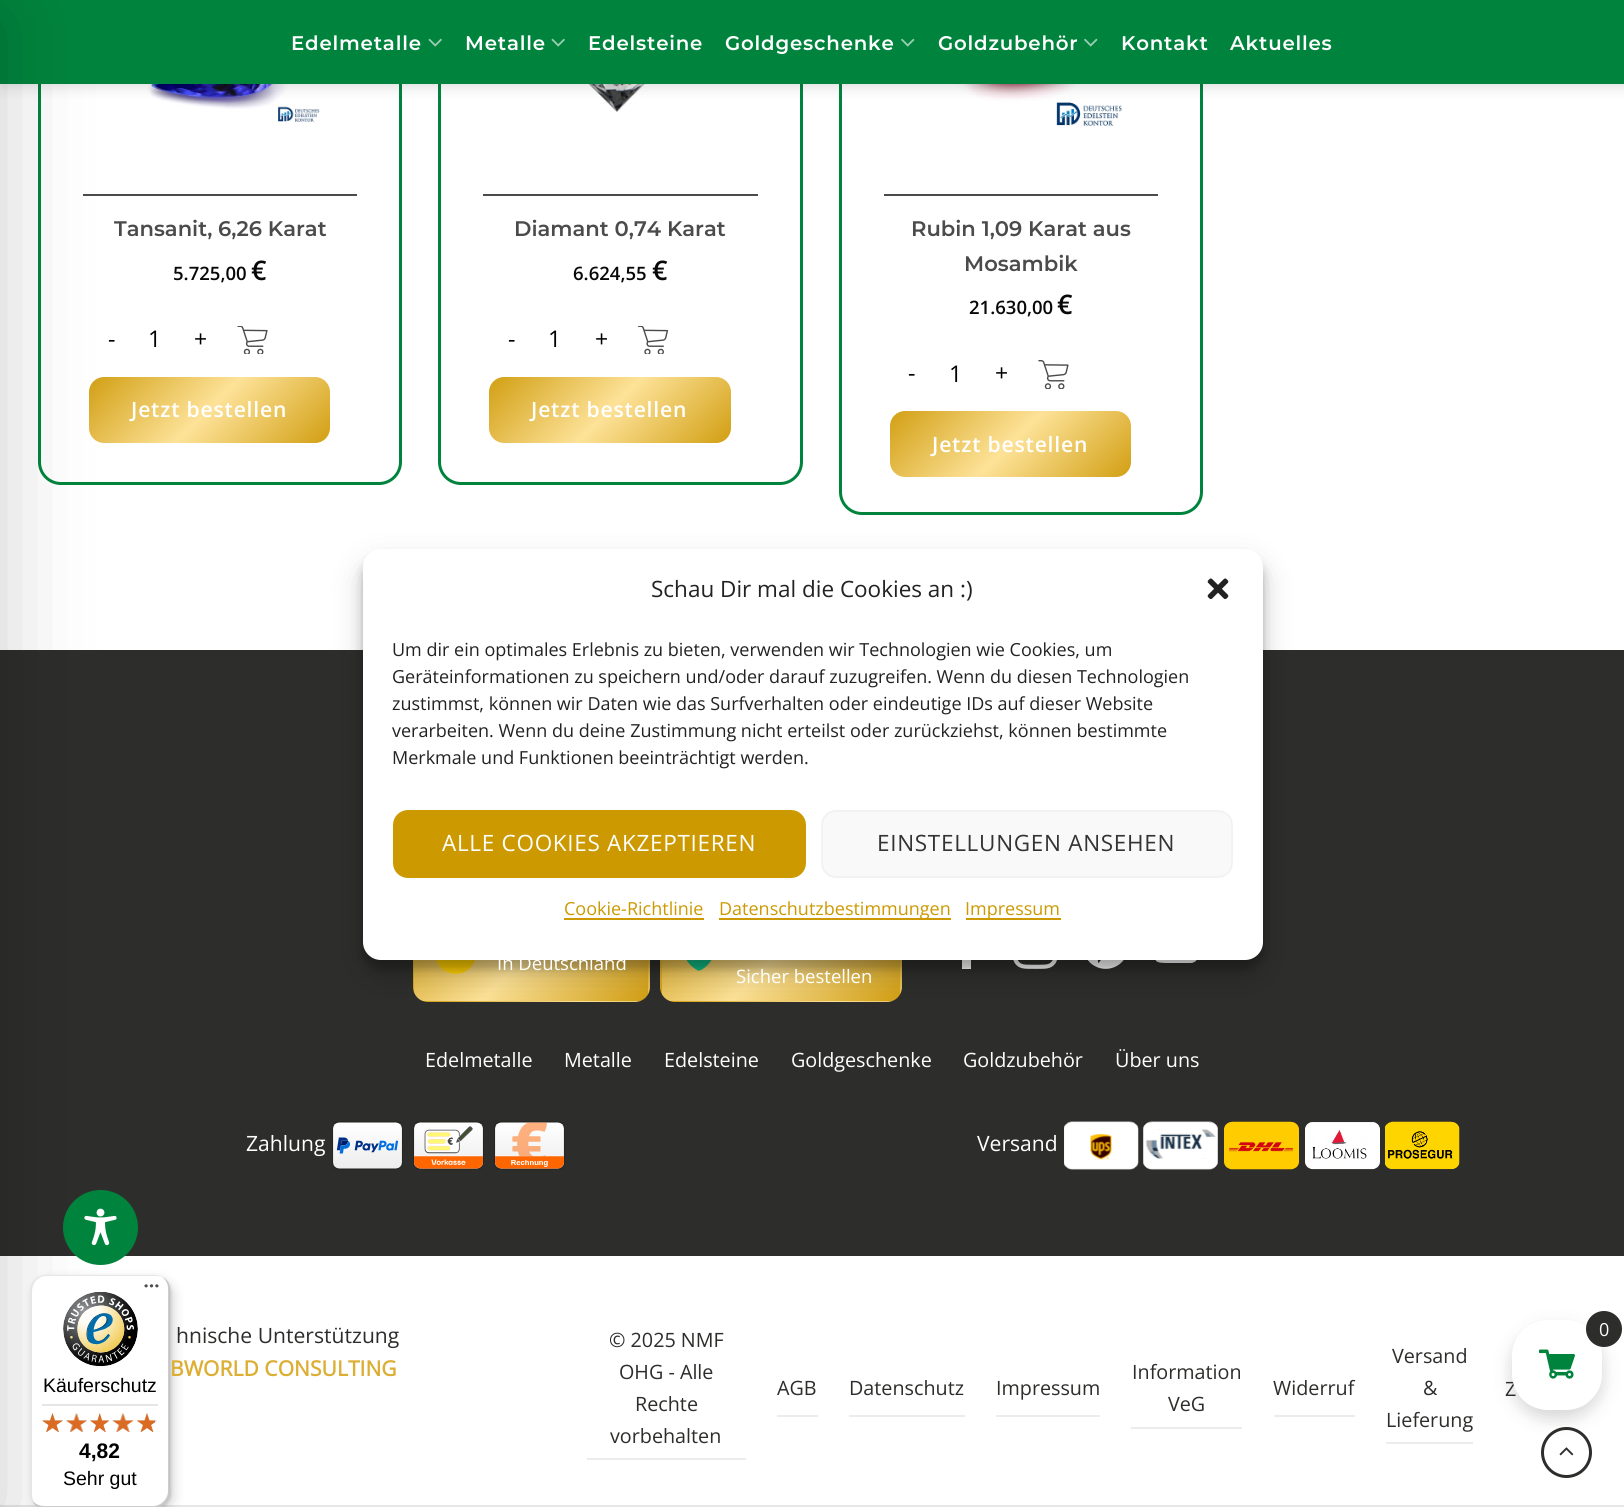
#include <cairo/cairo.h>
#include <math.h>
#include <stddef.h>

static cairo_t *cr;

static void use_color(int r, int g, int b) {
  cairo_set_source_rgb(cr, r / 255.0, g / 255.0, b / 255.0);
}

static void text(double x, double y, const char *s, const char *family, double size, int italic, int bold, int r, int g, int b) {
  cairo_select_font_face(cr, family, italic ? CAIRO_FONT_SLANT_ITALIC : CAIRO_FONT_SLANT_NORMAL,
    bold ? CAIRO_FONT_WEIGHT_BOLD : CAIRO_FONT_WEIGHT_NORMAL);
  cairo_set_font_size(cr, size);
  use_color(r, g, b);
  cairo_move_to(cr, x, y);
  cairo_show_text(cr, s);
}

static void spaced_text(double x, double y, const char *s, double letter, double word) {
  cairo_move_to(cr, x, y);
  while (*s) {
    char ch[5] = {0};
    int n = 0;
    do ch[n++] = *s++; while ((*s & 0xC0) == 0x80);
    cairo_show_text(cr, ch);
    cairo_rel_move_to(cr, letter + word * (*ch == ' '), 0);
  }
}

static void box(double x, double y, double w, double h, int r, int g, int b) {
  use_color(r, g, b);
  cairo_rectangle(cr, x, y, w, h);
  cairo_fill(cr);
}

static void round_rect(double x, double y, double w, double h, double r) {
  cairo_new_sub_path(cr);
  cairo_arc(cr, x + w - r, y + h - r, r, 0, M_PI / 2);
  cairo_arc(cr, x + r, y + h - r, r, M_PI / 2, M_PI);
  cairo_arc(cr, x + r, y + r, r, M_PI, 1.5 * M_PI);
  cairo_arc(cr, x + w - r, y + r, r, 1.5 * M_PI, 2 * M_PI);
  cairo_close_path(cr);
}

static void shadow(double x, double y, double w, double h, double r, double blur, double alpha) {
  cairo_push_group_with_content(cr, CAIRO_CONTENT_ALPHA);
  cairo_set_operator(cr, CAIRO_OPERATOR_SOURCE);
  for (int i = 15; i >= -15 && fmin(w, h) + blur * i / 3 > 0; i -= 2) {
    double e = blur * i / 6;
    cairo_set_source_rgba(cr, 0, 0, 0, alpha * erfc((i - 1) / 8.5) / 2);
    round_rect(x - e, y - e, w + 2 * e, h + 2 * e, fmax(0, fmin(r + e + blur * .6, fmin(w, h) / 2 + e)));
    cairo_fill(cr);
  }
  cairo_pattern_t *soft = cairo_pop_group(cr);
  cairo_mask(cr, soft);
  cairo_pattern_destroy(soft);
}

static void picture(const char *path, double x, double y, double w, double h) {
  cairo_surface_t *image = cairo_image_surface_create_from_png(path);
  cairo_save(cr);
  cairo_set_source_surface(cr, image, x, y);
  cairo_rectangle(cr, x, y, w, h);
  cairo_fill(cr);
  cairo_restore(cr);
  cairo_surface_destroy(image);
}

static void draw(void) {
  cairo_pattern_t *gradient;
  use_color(255, 255, 255);
  cairo_paint(cr);
  round_rect(39.5, -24.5, 361, 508, 21.5);
  use_color(0, 132, 61);
  cairo_set_line_width(cr, 3);
  cairo_stroke(cr);
  picture("img_03.png", 129, 84, 191, 38);
  round_rect(439.5, -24.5, 362, 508, 21.5);
  cairo_stroke(cr);
  picture("img_05.png", 526, 84, 181, 28);
  round_rect(840.5, -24.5, 361, 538, 21.5);
  cairo_stroke(cr);
  picture("img_07.png", 946, 84, 176, 42);
  use_color(0, 0, 0);
  shadow(2, 2, 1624, 84, 0, 7.5, 0.15);
  box(0, 0, 1624, 84, 0, 132, 61);
  box(83, 194, 274, 2, 75, 75, 75);
  gradient = cairo_pattern_create_linear(286, 486, 132, 333);
  cairo_pattern_add_color_stop_rgba(gradient, 0, 0.824, 0.624, 0.075, 1);
  cairo_pattern_add_color_stop_rgba(gradient, 0.5, 0.992, 0.886, 0.596, 1);
  cairo_pattern_add_color_stop_rgba(gradient, 1, 0.824, 0.624, 0.075, 1);
  cairo_set_source(cr, gradient);
  cairo_pattern_destroy(gradient);
  round_rect(89, 377, 241, 66, 15);
  cairo_fill(cr);
  box(0, 650, 1624, 606, 45, 45, 43);
  box(0, 1505, 1624, 2, 231, 231, 231);
  use_color(0, 132, 61);
  cairo_arc(cr, 100.5, 1227.5, 37.5, 0, 2 * M_PI);
  cairo_fill(cr);
  picture("img_22.png", 84, 1208, 33, 38);
  use_color(0, 0, 0);
  shadow(-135, 15, 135, 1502, 0, 45, 0.2);
  picture("img_01.png", 428, 38, 14, 9);
  picture("img_01.png", 551, 38, 14, 9);
  picture("img_02.png", 901, 38, 14, 9);
  picture("img_02.png", 1084, 38, 14, 9);
  picture("img_04.png", 237, 326, 31, 28);
  box(483, 194, 275, 2, 75, 75, 75);
  picture("img_06.png", 638, 326, 31, 28);
  gradient = cairo_pattern_create_linear(687, 486, 533, 333);
  cairo_pattern_add_color_stop_rgba(gradient, 0, 0.824, 0.624, 0.075, 1);
  cairo_pattern_add_color_stop_rgba(gradient, 0.5, 0.992, 0.886, 0.596, 1);
  cairo_pattern_add_color_stop_rgba(gradient, 1, 0.824, 0.624, 0.075, 1);
  cairo_set_source(cr, gradient);
  cairo_pattern_destroy(gradient);
  round_rect(489, 377, 242, 66, 15);
  cairo_fill(cr);
  box(884, 194, 274, 2, 75, 75, 75);
  picture("img_08.png", 1038, 360, 31, 29);
  gradient = cairo_pattern_create_linear(1087, 521, 933, 367);
  cairo_pattern_add_color_stop_rgba(gradient, 0, 0.824, 0.624, 0.075, 1);
  cairo_pattern_add_color_stop_rgba(gradient, 0.5, 0.992, 0.886, 0.596, 1);
  cairo_pattern_add_color_stop_rgba(gradient, 1, 0.824, 0.624, 0.075, 1);
  cairo_set_source(cr, gradient);
  cairo_pattern_destroy(gradient);
  round_rect(890, 411, 241, 66, 15);
  cairo_fill(cr);
  cairo_save(cr);
  round_rect(413, 899, 237, 103, 15);
  cairo_clip(cr);
  gradient = cairo_pattern_create_linear(381, 1034, 213, 867);
  cairo_pattern_add_color_stop_rgba(gradient, 0, 0.824, 0.624, 0.075, 1);
  cairo_pattern_add_color_stop_rgba(gradient, 0.5, 0.992, 0.886, 0.596, 1);
  cairo_pattern_add_color_stop_rgba(gradient, 1, 0.824, 0.624, 0.075, 1);
  cairo_set_source(cr, gradient);
  cairo_pattern_destroy(gradient);
  cairo_rectangle(cr, 413, 960, 1, 32);
  cairo_fill(cr);
  gradient = cairo_pattern_create_linear(615, 1034, 447, 867);
  cairo_pattern_add_color_stop_rgba(gradient, 0, 0.824, 0.624, 0.075, 1);
  cairo_pattern_add_color_stop_rgba(gradient, 0.5, 0.992, 0.886, 0.596, 1);
  cairo_pattern_add_color_stop_rgba(gradient, 1, 0.824, 0.624, 0.075, 1);
  cairo_set_source(cr, gradient);
  cairo_pattern_destroy(gradient);
  cairo_rectangle(cr, 414, 960, 234, 41);
  cairo_fill(cr);
  gradient = cairo_pattern_create_linear(849, 1034, 681, 867);
  cairo_pattern_add_color_stop_rgba(gradient, 0, 0.824, 0.624, 0.075, 1);
  cairo_pattern_add_color_stop_rgba(gradient, 0.5, 0.992, 0.886, 0.596, 1);
  cairo_pattern_add_color_stop_rgba(gradient, 1, 0.824, 0.624, 0.075, 1);
  cairo_set_source(cr, gradient);
  cairo_pattern_destroy(gradient);
  cairo_rectangle(cr, 648, 960, 2, 41);
  cairo_fill(cr);
  gradient = cairo_pattern_create_linear(615, 1134, 447, 967);
  cairo_pattern_add_color_stop_rgba(gradient, 0, 0.824, 0.624, 0.075, 1);
  cairo_pattern_add_color_stop_rgba(gradient, 0.5, 0.992, 0.886, 0.596, 1);
  cairo_pattern_add_color_stop_rgba(gradient, 1, 0.824, 0.624, 0.075, 1);
  cairo_set_source(cr, gradient);
  cairo_pattern_destroy(gradient);
  cairo_rectangle(cr, 423, 1001, 225, 1);
  cairo_fill(cr);
  cairo_restore(cr);
  use_color(255, 206, 0);
  cairo_new_path(cr);
  cairo_move_to(cr, 475, 960);
  cairo_curve_to(cr, 468.5, 978.5, 442.5, 978.5, 436, 960);
  cairo_close_path(cr);
  cairo_fill(cr);
  use_color(255, 255, 255);
  cairo_new_path(cr);
  cairo_move_to(cr, 971, 969);
  cairo_line_to(cr, 962, 969);
  cairo_line_to(cr, 962, 946);
  cairo_line_to(cr, 956, 946);
  cairo_line_to(cr, 956, 938);
  cairo_line_to(cr, 962, 938);
  cairo_curve_to(cr, 962, 924, 963, 923, 978, 923);
  cairo_line_to(cr, 978, 931);
  cairo_curve_to(cr, 970, 931, 971, 931, 971, 938);
  cairo_line_to(cr, 978, 938);
  cairo_line_to(cr, 977, 946);
  cairo_line_to(cr, 971, 946);
  cairo_close_path(cr);
  cairo_fill(cr);
  cairo_new_path(cr);
  cairo_move_to(cr, 1190, 929);
  cairo_line_to(cr, 1161, 929);
  cairo_curve_to(cr, 1152, 930, 1154, 940, 1154, 946);
  cairo_curve_to(cr, 1154, 963, 1154, 963, 1171, 963);
  cairo_line_to(cr, 1191, 963);
  cairo_curve_to(cr, 1200, 962, 1199, 952, 1199, 946);
  cairo_curve_to(cr, 1199, 940, 1200, 929, 1190, 929);
  cairo_close_path(cr);
  cairo_move_to(cr, 1171, 957);
  cairo_line_to(cr, 1171, 935);
  cairo_line_to(cr, 1185, 946);
  cairo_close_path(cr);
  cairo_fill(cr);
  picture("img_09.png", 1013, 960, 44, 9);
  picture("img_10.png", 1087, 960, 37, 9);
  cairo_save(cr);
  round_rect(660, 899, 242, 103, 15);
  cairo_clip(cr);
  gradient = cairo_pattern_create_linear(627, 1035, 458, 866);
  cairo_pattern_add_color_stop_rgba(gradient, 0, 0.824, 0.624, 0.075, 1);
  cairo_pattern_add_color_stop_rgba(gradient, 0.5, 0.992, 0.886, 0.596, 1);
  cairo_pattern_add_color_stop_rgba(gradient, 1, 0.824, 0.624, 0.075, 1);
  cairo_set_source(cr, gradient);
  cairo_pattern_destroy(gradient);
  cairo_rectangle(cr, 660, 960, 2, 41);
  cairo_fill(cr);
  gradient = cairo_pattern_create_linear(866, 1035, 696, 866);
  cairo_pattern_add_color_stop_rgba(gradient, 0, 0.824, 0.624, 0.075, 1);
  cairo_pattern_add_color_stop_rgba(gradient, 0.5, 0.992, 0.886, 0.596, 1);
  cairo_pattern_add_color_stop_rgba(gradient, 1, 0.824, 0.624, 0.075, 1);
  cairo_set_source(cr, gradient);
  cairo_pattern_destroy(gradient);
  cairo_rectangle(cr, 662, 960, 238, 41);
  cairo_fill(cr);
  gradient = cairo_pattern_create_linear(1104, 1035, 935, 866);
  cairo_pattern_add_color_stop_rgba(gradient, 0, 0.824, 0.624, 0.075, 1);
  cairo_pattern_add_color_stop_rgba(gradient, 0.5, 0.992, 0.886, 0.596, 1);
  cairo_pattern_add_color_stop_rgba(gradient, 1, 0.824, 0.624, 0.075, 1);
  cairo_set_source(cr, gradient);
  cairo_pattern_destroy(gradient);
  cairo_rectangle(cr, 900, 960, 2, 41);
  cairo_fill(cr);
  gradient = cairo_pattern_create_linear(866, 1136, 696, 966);
  cairo_pattern_add_color_stop_rgba(gradient, 0, 0.824, 0.624, 0.075, 1);
  cairo_pattern_add_color_stop_rgba(gradient, 0.5, 0.992, 0.886, 0.596, 1);
  cairo_pattern_add_color_stop_rgba(gradient, 1, 0.824, 0.624, 0.075, 1);
  cairo_set_source(cr, gradient);
  cairo_pattern_destroy(gradient);
  cairo_rectangle(cr, 662, 1001, 238, 1);
  cairo_fill(cr);
  cairo_restore(cr);
  picture("img_11.png", 686, 960, 26, 11);
  picture("img_12.png", 332, 1121, 71, 49);
  picture("img_13.png", 413, 1121, 71, 49);
  picture("img_14.png", 494, 1121, 71, 49);
  picture("img_15.png", 1064, 1121, 75, 49);
  picture("img_16.png", 1143, 1121, 75, 49);
  picture("img_17.png", 1224, 1121, 75, 49);
  picture("img_18.png", 1305, 1122, 75, 48);
  picture("img_19.png", 1385, 1121, 75, 49);
  box(587, 1458, 159, 2, 236, 236, 236);
  box(777, 1415, 41, 2, 236, 236, 236);
  box(849, 1415, 116, 2, 236, 236, 236);
  box(996, 1415, 104, 2, 236, 236, 236);
  box(1131, 1427, 111, 2, 236, 236, 236);
  box(1274, 1415, 81, 2, 236, 236, 236);
  box(1386, 1442, 87, 2, 236, 236, 236);
  cairo_arc(cr, 1566.5, 1452.5, 24, 0, 2 * M_PI);
  use_color(45, 45, 43);
  cairo_stroke(cr);
  picture("img_20.png", 1559, 1447, 15, 9);
  use_color(0, 0, 0);
  shadow(363, 558, 900, 411, 18, 4.5, 0.23);
  shadow(363, 564, 900, 411, 18, 15, 0.19);
  use_color(255, 255, 255);
  round_rect(363, 549, 900, 411, 18);
  cairo_fill(cr);
  picture("img_21.png", 1207, 578, 22, 22);
  use_color(204, 153, 0);
  round_rect(394, 811, 411, 66, 14);
  cairo_fill_preserve(cr);
  cairo_set_line_width(cr, 2);
  cairo_stroke(cr);
  use_color(249, 249, 249);
  round_rect(822, 811, 410, 66, 14);
  cairo_fill_preserve(cr);
  use_color(242, 242, 242);
  cairo_stroke(cr);
  box(564, 918, 140, 2, 204, 153, 0);
  box(719, 918, 232, 2, 204, 153, 0);
  box(966, 918, 95, 2, 204, 153, 0);
  use_color(0, 0, 0);
  shadow(1512, 1328, 90, 90, 36, 9, 0.17);
  shadow(35, 1280, 139, 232, 15, 6, 0.15);
  shadow(32, 1277, 139, 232, 15, 1.5, 0.15);
  use_color(255, 255, 255);
  round_rect(30, 1275, 140, 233, 15);
  cairo_fill(cr);
  cairo_set_source_rgba(cr, 0, 0, 0, 0.1);
  cairo_new_path(cr);
  cairo_move_to(cr, 46, 1276);
  cairo_line_to(cr, 156, 1276);
  cairo_curve_to(cr, 161, 1276, 165, 1278, 168, 1282);
  cairo_curve_to(cr, 165, 1278, 160, 1275, 155, 1275);
  cairo_line_to(cr, 45, 1275);
  cairo_curve_to(cr, 37, 1275, 30, 1282, 30, 1290);
  cairo_line_to(cr, 30, 1493);
  cairo_curve_to(cr, 30, 1499, 33, 1504, 38, 1506);
  cairo_curve_to(cr, 34, 1503, 32, 1499, 32, 1494);
  cairo_line_to(cr, 32, 1292);
  cairo_curve_to(cr, 32, 1283, 38, 1276, 46, 1276);
  cairo_close_path(cr);
  cairo_fill(cr);
  cairo_set_source_rgba(cr, 0, 0, 0, 0.2);
  cairo_new_path(cr);
  cairo_move_to(cr, 33, 1502);
  cairo_curve_to(cr, 35, 1505, 40, 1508, 45, 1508);
  cairo_line_to(cr, 155, 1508);
  cairo_curve_to(cr, 163, 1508, 170, 1501, 170, 1493);
  cairo_line_to(cr, 170, 1290);
  cairo_curve_to(cr, 170, 1284, 167, 1279, 162, 1277);
  cairo_curve_to(cr, 165, 1279, 168, 1283, 168, 1288);
  cairo_line_to(cr, 168, 1491);
  cairo_curve_to(cr, 168, 1499, 161, 1506, 153, 1506);
  cairo_line_to(cr, 44, 1506);
  cairo_curve_to(cr, 40, 1506, 36, 1504, 33, 1502);
  cairo_close_path(cr);
  cairo_fill(cr);
  cairo_set_source_rgba(cr, 0.196, 0.196, 0.196, 0.2);
  cairo_new_path(cr);
  cairo_move_to(cr, 33, 1502);
  cairo_curve_to(cr, 36, 1506, 40, 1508, 45, 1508);
  cairo_line_to(cr, 155, 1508);
  cairo_curve_to(cr, 163, 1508, 170, 1501, 170, 1493);
  cairo_line_to(cr, 170, 1290);
  cairo_curve_to(cr, 170, 1285, 168, 1281, 164, 1278);
  cairo_curve_to(cr, 167, 1281, 169, 1285, 169, 1289);
  cairo_line_to(cr, 169, 1492);
  cairo_curve_to(cr, 169, 1500, 162, 1507, 154, 1507);
  cairo_line_to(cr, 44, 1507);
  cairo_curve_to(cr, 40, 1507, 36, 1505, 33, 1502);
  cairo_close_path(cr);
  cairo_fill(cr);
  cairo_set_source_rgba(cr, 1, 1, 1, 0.3);
  cairo_new_path(cr);
  cairo_move_to(cr, 33, 1502);
  cairo_curve_to(cr, 36, 1506, 40, 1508, 45, 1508);
  cairo_line_to(cr, 155, 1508);
  cairo_curve_to(cr, 163, 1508, 170, 1501, 170, 1493);
  cairo_line_to(cr, 170, 1290);
  cairo_curve_to(cr, 170, 1285, 168, 1281, 164, 1278);
  cairo_curve_to(cr, 167, 1281, 169, 1285, 169, 1289);
  cairo_line_to(cr, 169, 1492);
  cairo_curve_to(cr, 169, 1500, 162, 1507, 154, 1507);
  cairo_line_to(cr, 44, 1507);
  cairo_curve_to(cr, 40, 1507, 36, 1505, 33, 1502);
  cairo_close_path(cr);
  cairo_fill(cr);
  picture("img_24.png", 144, 1284, 15, 4);
  picture("img_25.png", 63, 1292, 75, 75);
  box(42, 1404, 116, 2, 229, 229, 229);
  picture("img_26.png", 42, 1413, 21, 19);
  picture("img_27.png", 66, 1413, 21, 19);
  picture("img_28.png", 90, 1413, 19, 19);
  picture("img_29.png", 112, 1413, 22, 19);
  picture("img_30.png", 137, 1413, 20, 19);
  picture("img_31.png", 42, 1413, 21, 20);
  picture("img_32.png", 66, 1413, 21, 19);
  picture("img_33.png", 90, 1413, 20, 20);
  picture("img_34.png", 112, 1413, 22, 19);
  picture("img_35.png", 137, 1413, 18, 20);
  cairo_select_font_face(cr, "Montserrat SemiBold", CAIRO_FONT_SLANT_NORMAL, CAIRO_FONT_WEIGHT_NORMAL);
  cairo_set_font_size(cr, 19.75);
  use_color(255, 255, 255);
  spaced_text(291, 50, "Edelmetalle", 0.8, 0);
  spaced_text(465, 50, "Metalle", 0.8, 0);
  spaced_text(588, 50, "Edelsteine", 0.8, 0);
  spaced_text(725, 50, "Goldgeschenke", 0.8, 0);
  spaced_text(938, 50, "Goldzubehör", 0.8, 0);
  spaced_text(1121, 50, "Kontakt", 0.8, 0);
  spaced_text(1230, 50, "Aktuelles", 0.8, 0);
  text(114, 236, "Tansanit, 6,26 Karat", "Montserrat SemiBold", 21.1, 0, 0, 75, 75, 75);
  text(173, 280, "5.725,00", "Open Sans SemiBold", 18.5, 0, 0, 8, 8, 8);
  text(251, 280, "€", "Open Sans SemiBold", 27, 0, 0, 8, 8, 8);
  text(108, 347, "-", "Open Sans", 23, 0, 0, 0, 0, 0);
  text(148, 347, "1", "Open Sans", 23, 0, 0, 0, 0, 0);
  text(194, 347, "+", "Open Sans", 23, 0, 0, 0, 0, 0);
  cairo_select_font_face(cr, "Open Sans SemiBold", CAIRO_FONT_SLANT_NORMAL, CAIRO_FONT_WEIGHT_NORMAL);
  cairo_set_font_size(cr, 21.1);
  use_color(255, 255, 255);
  spaced_text(131, 417, "Jetzt bestellen", 0.8, 0);
  text(514, 236, "Diamant 0,74 Karat", "Montserrat SemiBold", 21.1, 0, 0, 75, 75, 75);
  text(573, 280, "6.624,55", "Open Sans SemiBold", 18.5, 0, 0, 8, 8, 8);
  text(652, 280, "€", "Open Sans SemiBold", 27, 0, 0, 8, 8, 8);
  text(508, 347, "-", "Open Sans", 23, 0, 0, 0, 0, 0);
  text(548, 347, "1", "Open Sans", 23, 0, 0, 0, 0, 0);
  text(595, 347, "+", "Open Sans", 23, 0, 0, 0, 0, 0);
  cairo_select_font_face(cr, "Open Sans SemiBold", CAIRO_FONT_SLANT_NORMAL, CAIRO_FONT_WEIGHT_NORMAL);
  cairo_set_font_size(cr, 21.1);
  use_color(255, 255, 255);
  spaced_text(531, 417, "Jetzt bestellen", 0.8, 0);
  text(911, 236, "Rubin 1,09 Karat aus", "Montserrat SemiBold", 21.1, 0, 0, 75, 75, 75);
  text(964, 271, "Mosambik", "Montserrat SemiBold", 21.1, 0, 0, 75, 75, 75);
  text(969, 314, "21.630,00", "Open Sans SemiBold", 18.5, 0, 0, 8, 8, 8);
  text(1057, 314, "€", "Open Sans SemiBold", 27, 0, 0, 8, 8, 8);
  text(908, 381, "-", "Open Sans", 23, 0, 0, 0, 0, 0);
  text(949, 382, "1", "Open Sans", 23, 0, 0, 0, 0, 0);
  text(995, 381, "+", "Open Sans", 23, 0, 0, 0, 0, 0);
  cairo_select_font_face(cr, "Open Sans SemiBold", CAIRO_FONT_SLANT_NORMAL, CAIRO_FONT_WEIGHT_NORMAL);
  cairo_set_font_size(cr, 21.1);
  use_color(255, 255, 255);
  spaced_text(932, 452, "Jetzt bestellen", 0.8, 0);
  text(497, 970, "In Deutschland", "Open Sans", 18.5, 0, 0, 255, 255, 255);
  text(736, 983, "Sicher bestellen", "Open Sans", 18.5, 0, 0, 255, 255, 255);
  text(425, 1067, "Edelmetalle", "Open Sans", 19.75, 0, 0, 255, 255, 255);
  text(564, 1067, "Metalle", "Open Sans", 19.75, 0, 0, 255, 255, 255);
  text(664, 1067, "Edelsteine", "Open Sans", 19.75, 0, 0, 255, 255, 255);
  text(791, 1067, "Goldgeschenke", "Open Sans", 19.75, 0, 0, 255, 255, 255);
  text(963, 1067, "Goldzubehör", "Open Sans", 19.75, 0, 0, 255, 255, 255);
  text(1115, 1067, "Über uns", "Open Sans", 19.75, 0, 0, 255, 255, 255);
  text(246, 1151, "Zahlung", "Open Sans", 21.1, 0, 0, 255, 255, 255);
  text(977, 1151, "Versand", "Open Sans", 21.1, 0, 0, 255, 255, 255);
  text(176, 1343, "hnische Unterstützung", "Open Sans", 21.1, 0, 0, 45, 45, 43);
  text(170, 1376, "BWORLD CONSULTING", "Open Sans", 21.1, 0, 1, 220, 174, 51);
  text(609, 1347, "© 2025 NMF", "Open Sans", 19.75, 0, 0, 45, 45, 43);
  text(619, 1379, "OHG - Alle", "Open Sans", 19.75, 0, 0, 45, 45, 43);
  text(635, 1411, "Rechte", "Open Sans", 19.75, 0, 0, 45, 45, 43);
  text(610, 1443, "vorbehalten", "Open Sans", 19.75, 0, 0, 45, 45, 43);
  text(777, 1395, "AGB", "Open Sans", 19.75, 0, 0, 45, 45, 43);
  text(849, 1395, "Datenschutz", "Open Sans", 19.75, 0, 0, 45, 45, 43);
  text(996, 1395, "Impressum", "Open Sans", 19.75, 0, 0, 45, 45, 43);
  text(1132, 1379, "Information", "Open Sans", 19.75, 0, 0, 45, 45, 43);
  text(1168, 1411, "VeG", "Open Sans", 19.75, 0, 0, 45, 45, 43);
  text(1273, 1395, "Widerruf", "Open Sans", 19.75, 0, 0, 45, 45, 43);
  text(1392, 1363, "Versand", "Open Sans", 19.75, 0, 0, 45, 45, 43);
  text(1423, 1395, "&", "Open Sans", 19.75, 0, 0, 45, 45, 43);
  text(1386, 1427, "Lieferung", "Open Sans", 19.75, 0, 0, 45, 45, 43);
  text(1505, 1396, "Z", "Open Sans", 19.75, 0, 0, 45, 45, 43);
  text(651, 597, "Schau Dir mal die Cookies an :)", "Open Sans", 22.5, 0, 0, 34, 34, 34);
  text(392, 656, "Um dir ein optimales Erlebnis zu bieten, verwenden wir Technologien wie Cookies, um", "Open Sans", 18, 0, 0, 34, 34, 34);
  text(392, 683, "Geräteinformationen zu speichern und/oder darauf zuzugreifen. Wenn du diesen Technologien", "Open Sans", 18, 0, 0, 34, 34, 34);
  text(392, 710, "zustimmst, können wir Daten wie das Surfverhalten oder eindeutige IDs auf dieser Website", "Open Sans", 18, 0, 0, 34, 34, 34);
  text(392, 737, "verarbeiten. Wenn du deine Zustimmung nicht erteilst oder zurückziehst, können bestimmte", "Open Sans", 18, 0, 0, 34, 34, 34);
  text(392, 764, "Merkmale und Funktionen beeinträchtigt werden.", "Open Sans", 18, 0, 0, 34, 34, 34);
  cairo_set_font_size(cr, 22.5);
  use_color(255, 255, 255);
  spaced_text(442, 851, "ALLE COOKIES AKZEPTIEREN", 0.7, 0);
  use_color(51, 51, 51);
  spaced_text(877, 851, "EINSTELLUNGEN ANSEHEN", 0.7, 0);
  text(564, 915, "Cookie-Richtlinie", "Open Sans", 18, 0, 0, 204, 153, 0);
  text(719, 915, "Datenschutzbestimmungen", "Open Sans", 18, 0, 0, 204, 153, 0);
  text(965, 915, "Impressum", "Open Sans", 18, 0, 0, 204, 153, 0);
  use_color(255, 255, 255);
  round_rect(1512, 1320, 90, 90, 36);
  cairo_fill(cr);
  use_color(45, 45, 43);
  cairo_arc(cr, 1604, 1329, 18, 0, 2 * M_PI);
  cairo_fill(cr);
  text(1599, 1336, "0", "Open Sans", 18, 0, 0, 255, 255, 255);
  picture("img_23.png", 1539, 1349, 36, 30);
  text(43, 1392, "Käuferschutz", "Liberation Sans", 19.5, 0, 0, 0, 0, 0);
  text(79, 1458, "4,82", "Liberation Sans", 21, 0, 1, 0, 0, 0);
  text(63, 1485, "Sehr gut", "Liberation Sans", 19.5, 0, 0, 0, 0, 0);
}

int main(void) {
  cairo_surface_t *surface = cairo_image_surface_create(CAIRO_FORMAT_RGB24, 1624, 1507);
  cr = cairo_create(surface);
  cairo_font_options_t *options = cairo_font_options_create();
  cairo_font_options_set_hint_metrics(options, CAIRO_HINT_METRICS_OFF);
  cairo_font_options_set_hint_style(options, CAIRO_HINT_STYLE_NONE);
  cairo_set_font_options(cr, options);
  cairo_set_miter_limit(cr, 4);
  draw();
  cairo_surface_write_to_png(surface, "out.png");
  cairo_font_options_destroy(options);
  cairo_destroy(cr);
  cairo_surface_destroy(surface);
  return 0;
}
